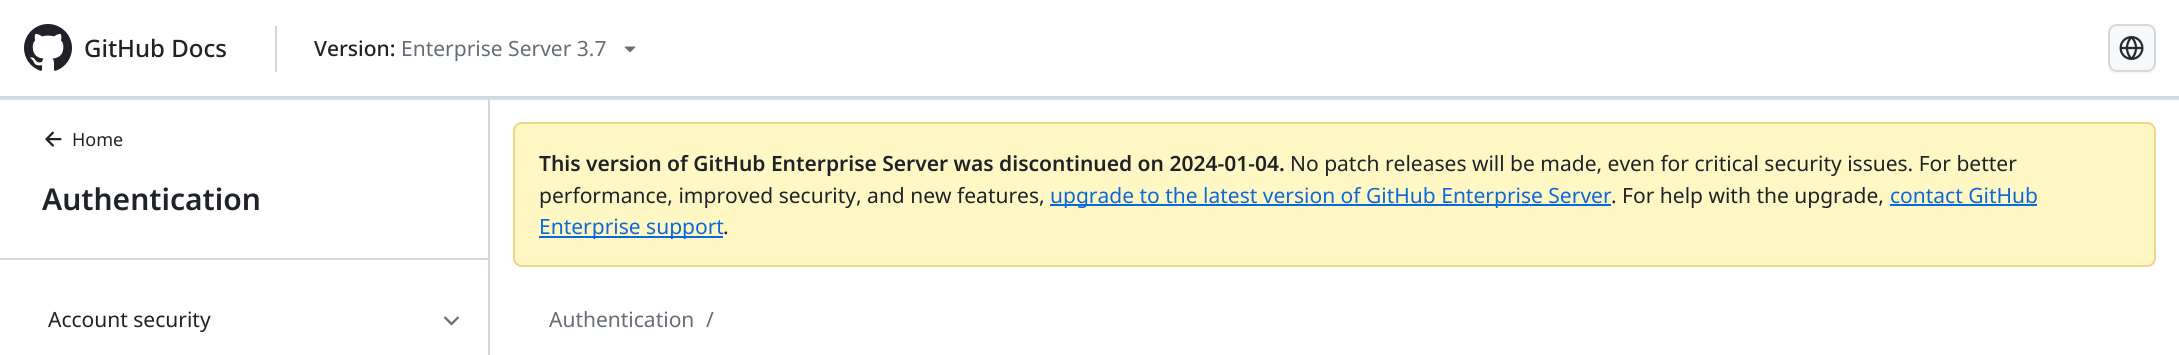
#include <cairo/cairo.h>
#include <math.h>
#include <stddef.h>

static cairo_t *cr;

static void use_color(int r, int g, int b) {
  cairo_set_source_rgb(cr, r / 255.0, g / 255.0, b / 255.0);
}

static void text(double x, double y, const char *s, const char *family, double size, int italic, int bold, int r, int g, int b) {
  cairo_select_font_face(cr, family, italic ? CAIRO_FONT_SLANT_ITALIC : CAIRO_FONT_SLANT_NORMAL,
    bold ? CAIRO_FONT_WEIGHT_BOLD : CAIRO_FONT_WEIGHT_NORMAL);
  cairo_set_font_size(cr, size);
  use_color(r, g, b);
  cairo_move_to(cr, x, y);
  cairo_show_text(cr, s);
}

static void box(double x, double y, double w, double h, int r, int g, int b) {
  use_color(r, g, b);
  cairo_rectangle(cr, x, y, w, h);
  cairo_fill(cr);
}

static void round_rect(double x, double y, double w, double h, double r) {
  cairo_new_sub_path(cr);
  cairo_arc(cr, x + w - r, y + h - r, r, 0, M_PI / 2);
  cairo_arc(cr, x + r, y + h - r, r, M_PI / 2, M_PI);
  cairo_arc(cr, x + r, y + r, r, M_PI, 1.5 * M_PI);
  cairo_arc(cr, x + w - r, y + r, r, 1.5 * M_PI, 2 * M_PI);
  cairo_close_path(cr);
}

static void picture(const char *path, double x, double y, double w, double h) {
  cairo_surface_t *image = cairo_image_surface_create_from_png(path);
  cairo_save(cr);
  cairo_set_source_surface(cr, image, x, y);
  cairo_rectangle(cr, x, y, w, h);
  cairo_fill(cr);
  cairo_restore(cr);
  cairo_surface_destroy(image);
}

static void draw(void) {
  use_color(255, 255, 255);
  cairo_paint(cr);
  box(0, 98, 2179, 2, 216, 222, 228);
  box(0, 96, 2179, 2, 208, 215, 222);
  picture("img_01.png", 24, 24, 48, 47);
  box(275, 26, 2, 46, 208, 215, 222);
  picture("img_02.png", 624, 46, 12, 7);
  use_color(246, 246, 246);
  cairo_new_path(cr);
  cairo_move_to(cr, 2108, 66);
  cairo_curve_to(cr, 2109, 71, 2112, 74, 2117, 74);
  cairo_line_to(cr, 2147, 74);
  cairo_curve_to(cr, 2152, 74, 2156, 70, 2156, 65);
  cairo_line_to(cr, 2156, 35);
  cairo_line_to(cr, 2155, 32);
  cairo_line_to(cr, 2155, 65);
  cairo_line_to(cr, 2154, 68);
  cairo_curve_to(cr, 2151, 72, 2146, 72, 2142, 72);
  cairo_line_to(cr, 2122, 72);
  cairo_curve_to(cr, 2116, 72, 2110, 72, 2108, 66);
  cairo_close_path(cr);
  cairo_fill(cr);
  use_color(246, 248, 250);
  round_rect(2108, 24, 48, 48, 9);
  cairo_fill(cr);
  round_rect(2109, 25, 46, 46, 8);
  cairo_set_source_rgba(cr, 0.122, 0.137, 0.157, 0.15);
  cairo_stroke(cr);
  picture("img_03.png", 2119, 36, 25, 24);
  box(488, 98, 2, 257, 208, 215, 222);
  box(0, 258, 488, 2, 208, 215, 222);
  picture("img_04.png", 45, 131, 17, 16);
  picture("img_05.png", 444, 316, 15, 10);
  use_color(255, 248, 197);
  round_rect(513, 122, 1643, 145, 9);
  cairo_fill(cr);
  round_rect(514, 123, 1641, 143, 8);
  cairo_set_source_rgba(cr, 0.831, 0.655, 0.173, 0.4);
  cairo_stroke(cr);
  box(1050, 204, 561, 2, 9, 105, 218);
  box(1890, 204, 147, 2, 9, 105, 218);
  box(539, 236, 184, 2, 9, 105, 218);
  text(84, 57, "GitHub Docs", "Noto Sans Medium", 24, 0, 0, 31, 35, 40);
  text(314, 56, "Version:", "Noto Sans Medium", 21, 0, 0, 31, 35, 40);
  text(401, 56, "Enterprise Server 3.7", "Noto Sans", 21, 0, 0, 101, 109, 118);
  text(72, 146, "Home", "Noto Sans", 18, 0, 0, 31, 35, 40);
  text(42, 210, "Authentication", "Noto Sans SemiBold", 30, 0, 0, 31, 35, 40);
  text(48, 327, "Account security", "Noto Sans", 21, 0, 0, 31, 35, 40);
  text(539, 171, "This version of GitHub Enterprise Server was discontinued on 2024-01-04.", "Noto Sans SemiBold", 21, 0, 0, 31, 35, 40);
  text(1290, 171, "No patch releases will be made, even for critical security issues. For better", "Noto Sans", 21, 0, 0, 31, 35, 40);
  text(539, 203, "performance, improved security, and new features,", "Noto Sans", 21, 0, 0, 31, 35, 40);
  text(1050, 203, "upgrade to the latest version of GitHub Enterprise Server", "Noto Sans", 21, 0, 0, 9, 105, 218);
  text(1611, 203, ". For help with the upgrade,", "Noto Sans", 21, 0, 0, 31, 35, 40);
  text(1890, 203, "contact GitHub", "Noto Sans", 21, 0, 0, 9, 105, 218);
  text(539, 234, "Enterprise support", "Noto Sans", 21, 0, 0, 9, 105, 218);
  text(723, 234, ".", "Noto Sans", 21, 0, 0, 31, 35, 40);
  text(549, 327, "Authentication", "Noto Sans", 21, 0, 0, 101, 109, 118);
  text(706, 327, "/", "Noto Sans", 21, 0, 0, 101, 109, 118);
}

int main(void) {
  cairo_surface_t *surface = cairo_image_surface_create(CAIRO_FORMAT_RGB24, 2179, 355);
  cr = cairo_create(surface);
  cairo_font_options_t *options = cairo_font_options_create();
  cairo_font_options_set_hint_metrics(options, CAIRO_HINT_METRICS_OFF);
  cairo_font_options_set_hint_style(options, CAIRO_HINT_STYLE_NONE);
  cairo_set_font_options(cr, options);
  cairo_set_miter_limit(cr, 4);
  draw();
  cairo_surface_write_to_png(surface, "out.png");
  cairo_font_options_destroy(options);
  cairo_destroy(cr);
  cairo_surface_destroy(surface);
  return 0;
}
